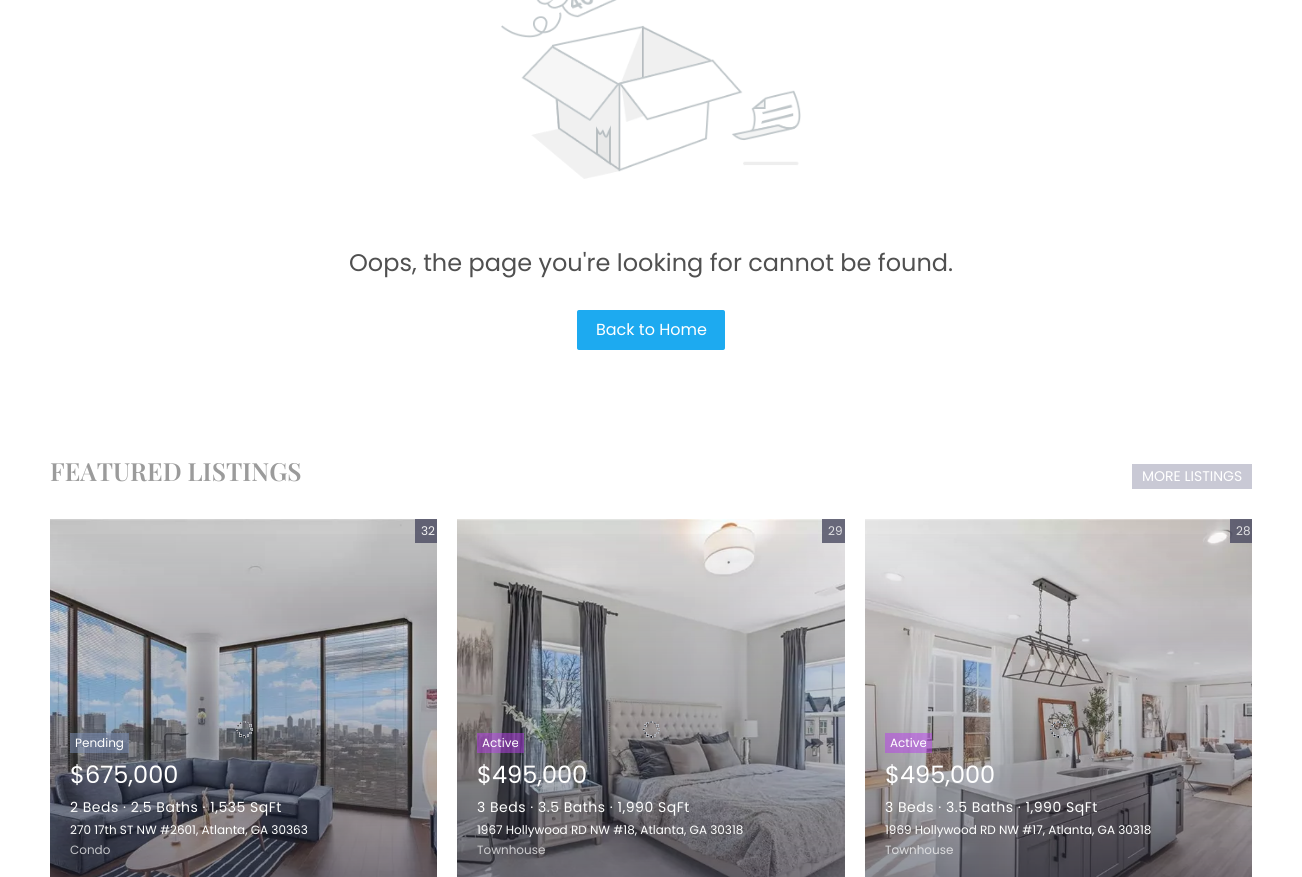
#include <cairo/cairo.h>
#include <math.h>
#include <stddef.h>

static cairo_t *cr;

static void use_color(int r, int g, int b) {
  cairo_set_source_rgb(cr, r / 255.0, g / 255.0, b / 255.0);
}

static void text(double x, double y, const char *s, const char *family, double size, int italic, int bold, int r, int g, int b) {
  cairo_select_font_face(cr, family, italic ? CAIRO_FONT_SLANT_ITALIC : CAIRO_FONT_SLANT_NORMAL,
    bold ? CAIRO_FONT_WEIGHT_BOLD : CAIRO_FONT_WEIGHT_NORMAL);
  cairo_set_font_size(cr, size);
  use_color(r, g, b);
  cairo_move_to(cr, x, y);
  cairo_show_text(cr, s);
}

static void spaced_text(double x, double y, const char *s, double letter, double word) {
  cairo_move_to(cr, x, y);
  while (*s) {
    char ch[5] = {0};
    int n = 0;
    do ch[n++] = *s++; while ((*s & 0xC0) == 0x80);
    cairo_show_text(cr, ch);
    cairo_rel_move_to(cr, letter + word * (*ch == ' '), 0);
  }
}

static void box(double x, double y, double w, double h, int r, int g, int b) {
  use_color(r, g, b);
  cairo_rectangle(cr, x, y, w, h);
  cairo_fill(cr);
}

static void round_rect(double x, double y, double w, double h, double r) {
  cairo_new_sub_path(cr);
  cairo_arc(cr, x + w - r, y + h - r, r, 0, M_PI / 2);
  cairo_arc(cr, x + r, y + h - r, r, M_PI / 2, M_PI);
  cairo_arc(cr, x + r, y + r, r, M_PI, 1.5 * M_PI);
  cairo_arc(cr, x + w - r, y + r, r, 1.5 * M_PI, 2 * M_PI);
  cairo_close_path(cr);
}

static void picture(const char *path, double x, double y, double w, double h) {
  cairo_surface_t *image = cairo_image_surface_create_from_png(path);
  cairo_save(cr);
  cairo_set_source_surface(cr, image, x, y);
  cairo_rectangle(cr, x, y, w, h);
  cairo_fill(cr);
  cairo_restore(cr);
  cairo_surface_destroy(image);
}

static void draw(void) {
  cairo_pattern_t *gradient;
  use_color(255, 255, 255);
  cairo_paint(cr);
  picture("img_01.png", 501, 0, 300, 179);
  use_color(29, 170, 240);
  round_rect(577, 310, 148, 40, 2);
  cairo_fill(cr);
  box(1132, 464, 120, 25, 201, 201, 213);
  picture("img_02.png", 50, 519, 387, 358);
  picture("img_03.png", 236, 721, 17, 17);
  gradient = cairo_pattern_create_linear(243, 519, 244, 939);
  cairo_pattern_add_color_stop_rgba(gradient, 0, 0.141, 0.165, 0.239, 0);
  cairo_pattern_add_color_stop_rgba(gradient, 1, 0.141, 0.165, 0.239, 0.6);
  cairo_pattern_add_color_stop_rgba(gradient, 1, 0.141, 0.165, 0.239, 1);
  cairo_set_source(cr, gradient);
  cairo_pattern_destroy(gradient);
  cairo_rectangle(cr, 50, 534, 387, 343);
  cairo_fill(cr);
  cairo_set_source_rgba(cr, 0.29, 0.29, 0.376, 0.8);
  cairo_rectangle(cr, 415, 519, 22, 24);
  cairo_fill(cr);
  cairo_set_source_rgba(cr, 0.506, 0.584, 0.741, 0.5);
  cairo_rectangle(cr, 70, 733, 59, 20);
  cairo_fill(cr);
  picture("img_04.png", 457, 519, 388, 358);
  picture("img_05.png", 643, 721, 17, 17);
  gradient = cairo_pattern_create_linear(651, 519, 651, 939);
  cairo_pattern_add_color_stop_rgba(gradient, 0, 0.141, 0.165, 0.239, 0);
  cairo_pattern_add_color_stop_rgba(gradient, 1, 0.141, 0.165, 0.239, 0.6);
  cairo_pattern_add_color_stop_rgba(gradient, 1, 0.141, 0.165, 0.239, 1);
  cairo_set_source(cr, gradient);
  cairo_pattern_destroy(gradient);
  cairo_rectangle(cr, 457, 534, 388, 343);
  cairo_fill(cr);
  cairo_set_source_rgba(cr, 0.29, 0.29, 0.376, 0.8);
  cairo_rectangle(cr, 822, 519, 23, 24);
  cairo_fill(cr);
  cairo_set_source_rgba(cr, 0.733, 0.251, 0.937, 0.5);
  cairo_rectangle(cr, 477, 733, 47, 20);
  cairo_fill(cr);
  picture("img_06.png", 865, 519, 387, 358);
  picture("img_07.png", 1050, 721, 17, 17);
  gradient = cairo_pattern_create_linear(1059, 519, 1059, 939);
  cairo_pattern_add_color_stop_rgba(gradient, 0, 0.141, 0.165, 0.239, 0);
  cairo_pattern_add_color_stop_rgba(gradient, 1, 0.141, 0.165, 0.239, 0.6);
  cairo_pattern_add_color_stop_rgba(gradient, 1, 0.141, 0.165, 0.239, 1);
  cairo_set_source(cr, gradient);
  cairo_pattern_destroy(gradient);
  cairo_rectangle(cr, 865, 534, 387, 343);
  cairo_fill(cr);
  cairo_set_source_rgba(cr, 0.29, 0.29, 0.376, 0.8);
  cairo_rectangle(cr, 1230, 519, 22, 24);
  cairo_fill(cr);
  cairo_set_source_rgba(cr, 0.733, 0.251, 0.937, 0.5);
  cairo_rectangle(cr, 885, 733, 47, 20);
  cairo_fill(cr);
  text(349, 271, "Oops, the page you're looking for cannot be found.", "Poppins", 24, 0, 0, 80, 80, 80);
  text(596, 335, "Back to Home", "Poppins", 16, 0, 0, 255, 255, 255);
  text(50, 481, "FEATURED LISTINGS", "Playfair Display SemiBold", 25, 0, 0, 155, 155, 155);
  text(1142, 481, "MORE LISTINGS", "Poppins", 14, 0, 0, 255, 255, 255);
  text(421, 535, "32", "Poppins", 12, 0, 0, 242, 242, 242);
  text(75, 747, "Pending", "Poppins", 12, 0, 0, 255, 255, 255);
  text(70, 783, "$675,000", "Poppins", 24, 0, 0, 255, 255, 255);
  cairo_set_font_size(cr, 14);
  spaced_text(70, 812, "2 Beds · 2.5 Baths · 1,535 SqFt", 0.5, 0);
  text(70, 834, "270 17th ST NW #2601, Atlanta, GA 30363", "Poppins", 12, 0, 0, 255, 255, 255);
  text(70, 854, "Condo", "Poppins", 12, 0, 0, 193, 194, 198);
  text(828, 535, "29", "Poppins", 12, 0, 0, 225, 225, 228);
  text(482, 747, "Active", "Poppins", 12, 0, 0, 255, 255, 255);
  text(477, 783, "$495,000", "Poppins", 24, 0, 0, 255, 255, 255);
  cairo_set_font_size(cr, 14);
  spaced_text(477, 812, "3 Beds · 3.5 Baths · 1,990 SqFt", 0.5, 0);
  text(477, 834, "1967 Hollywood RD NW #18, Atlanta, GA 30318", "Poppins", 12, 0, 0, 255, 255, 255);
  text(477, 854, "Townhouse", "Poppins", 12, 0, 0, 204, 204, 206);
  text(1236, 535, "28", "Poppins", 12, 0, 0, 225, 225, 228);
  text(890, 747, "Active", "Poppins", 12, 0, 0, 255, 255, 255);
  text(885, 783, "$495,000", "Poppins", 24, 0, 0, 255, 255, 255);
  cairo_set_font_size(cr, 14);
  spaced_text(885, 812, "3 Beds · 3.5 Baths · 1,990 SqFt", 0.5, 0);
  text(885, 834, "1969 Hollywood RD NW #17, Atlanta, GA 30318", "Poppins", 12, 0, 0, 255, 255, 255);
  text(885, 854, "Townhouse", "Poppins", 12, 0, 0, 220, 220, 222);
}

int main(void) {
  cairo_surface_t *surface = cairo_image_surface_create(CAIRO_FORMAT_RGB24, 1302, 877);
  cr = cairo_create(surface);
  cairo_font_options_t *options = cairo_font_options_create();
  cairo_font_options_set_hint_metrics(options, CAIRO_HINT_METRICS_OFF);
  cairo_font_options_set_hint_style(options, CAIRO_HINT_STYLE_NONE);
  cairo_set_font_options(cr, options);
  cairo_set_miter_limit(cr, 4);
  draw();
  cairo_surface_write_to_png(surface, "out.png");
  cairo_font_options_destroy(options);
  cairo_destroy(cr);
  cairo_surface_destroy(surface);
  return 0;
}
